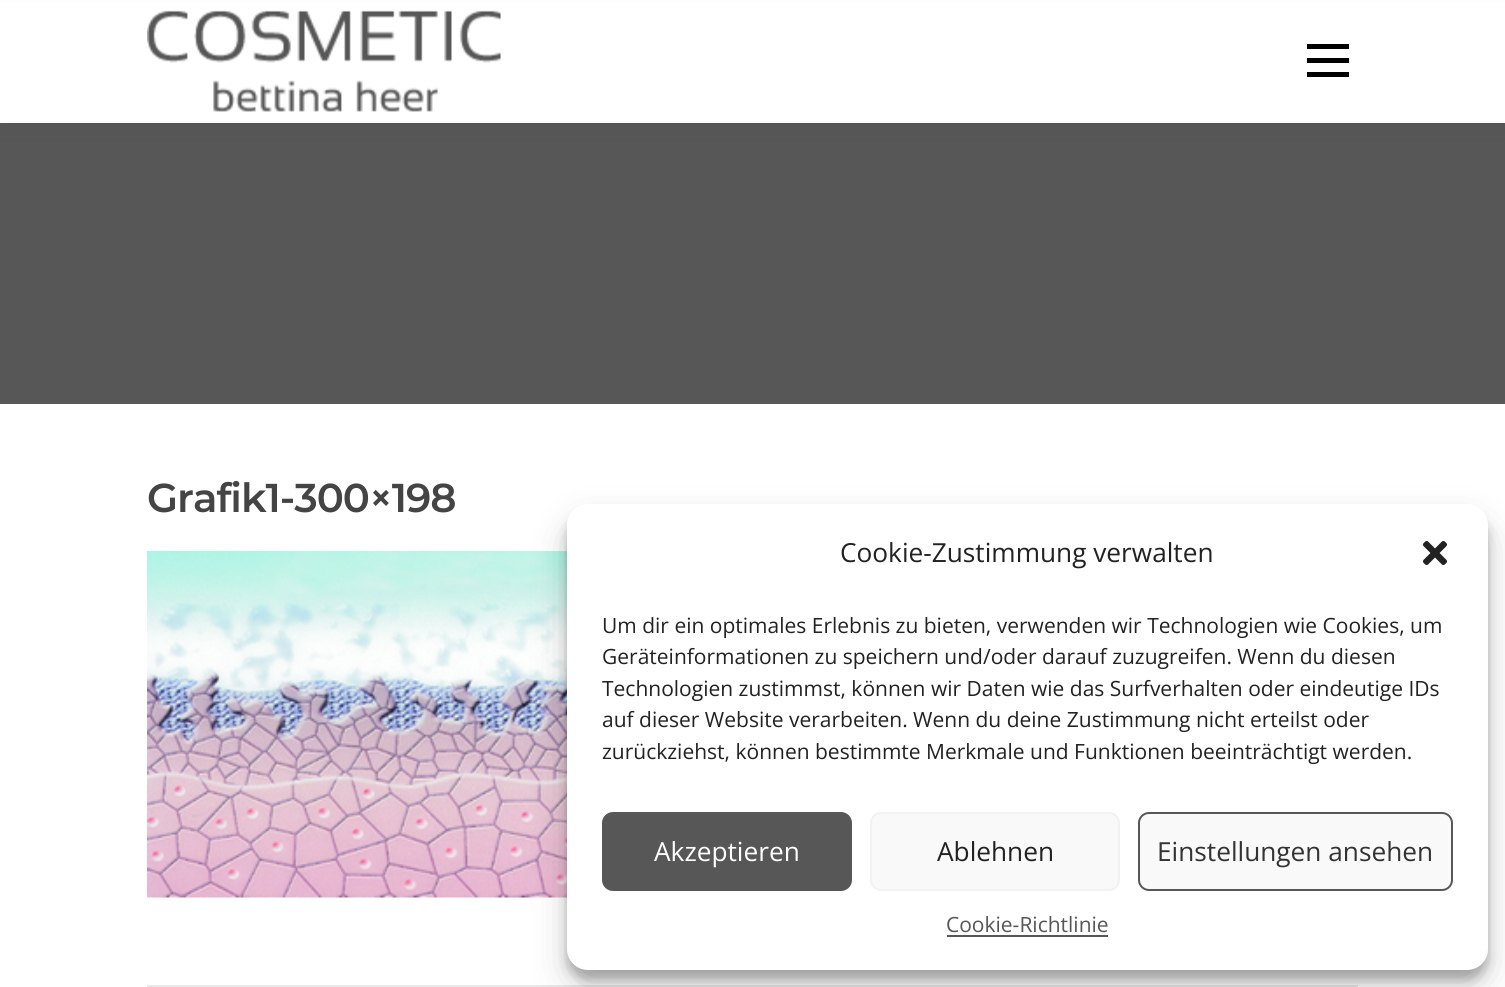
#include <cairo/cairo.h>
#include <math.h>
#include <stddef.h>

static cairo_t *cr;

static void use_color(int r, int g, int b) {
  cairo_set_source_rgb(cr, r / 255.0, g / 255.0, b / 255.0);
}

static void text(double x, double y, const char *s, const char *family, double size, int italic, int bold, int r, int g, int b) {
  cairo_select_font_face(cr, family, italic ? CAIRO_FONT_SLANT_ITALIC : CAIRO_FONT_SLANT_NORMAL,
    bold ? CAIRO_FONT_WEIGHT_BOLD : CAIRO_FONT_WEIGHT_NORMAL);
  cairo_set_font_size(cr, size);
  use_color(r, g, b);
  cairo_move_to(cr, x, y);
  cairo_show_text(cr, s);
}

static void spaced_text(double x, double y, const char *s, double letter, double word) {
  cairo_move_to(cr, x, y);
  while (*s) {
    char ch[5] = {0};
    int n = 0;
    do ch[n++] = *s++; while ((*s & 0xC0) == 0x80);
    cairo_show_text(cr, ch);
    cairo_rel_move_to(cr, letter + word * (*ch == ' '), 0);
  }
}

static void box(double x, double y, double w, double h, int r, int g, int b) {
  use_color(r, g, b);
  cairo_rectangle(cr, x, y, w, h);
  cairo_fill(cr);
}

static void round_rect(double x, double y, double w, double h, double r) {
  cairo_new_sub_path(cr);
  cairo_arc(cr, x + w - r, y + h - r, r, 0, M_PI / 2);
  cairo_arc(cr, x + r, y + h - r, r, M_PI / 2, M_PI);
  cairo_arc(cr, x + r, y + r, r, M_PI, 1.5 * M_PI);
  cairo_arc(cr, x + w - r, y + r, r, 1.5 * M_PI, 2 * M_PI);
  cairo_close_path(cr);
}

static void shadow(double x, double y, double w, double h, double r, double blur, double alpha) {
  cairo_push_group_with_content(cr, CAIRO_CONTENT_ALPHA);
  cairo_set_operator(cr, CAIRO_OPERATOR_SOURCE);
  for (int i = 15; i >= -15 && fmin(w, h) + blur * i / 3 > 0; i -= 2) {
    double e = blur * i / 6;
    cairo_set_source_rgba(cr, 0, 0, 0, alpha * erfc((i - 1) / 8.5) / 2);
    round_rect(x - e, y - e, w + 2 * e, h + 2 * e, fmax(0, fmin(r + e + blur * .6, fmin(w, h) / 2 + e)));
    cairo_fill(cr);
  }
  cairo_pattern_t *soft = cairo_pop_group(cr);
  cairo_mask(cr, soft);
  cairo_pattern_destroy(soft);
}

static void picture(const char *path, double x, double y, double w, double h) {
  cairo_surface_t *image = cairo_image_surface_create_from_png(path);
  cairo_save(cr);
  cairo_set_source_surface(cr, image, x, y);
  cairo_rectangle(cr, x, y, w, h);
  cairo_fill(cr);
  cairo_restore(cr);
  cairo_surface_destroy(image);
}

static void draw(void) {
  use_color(255, 255, 255);
  cairo_paint(cr);
  box(0, 123, 1505, 281, 87, 87, 87);
  use_color(50, 50, 50);
  shadow(0, 9, 1505, 122, 0, 9, 0.06);
  box(0, 2, 1505, 121, 255, 255, 255);
  picture("img_01.png", 147, 10, 354, 102);
  box(1307, 58, 42, 5, 0, 0, 0);
  box(1307, 44, 42, 5, 0, 0, 0);
  box(1307, 72, 42, 5, 0, 0, 0);
  picture("img_02.png", 147, 551, 420, 347);
  box(147, 985, 1211, 2, 233, 233, 233);
  use_color(0, 0, 0);
  shadow(567, 515, 921, 465, 21, 5, 0.23);
  shadow(567, 522, 921, 465, 21, 17.5, 0.19);
  use_color(255, 255, 255);
  round_rect(567, 504, 921, 466, 21);
  cairo_fill(cr);
  picture("img_03.png", 1423, 541, 24, 24);
  use_color(87, 87, 87);
  round_rect(603, 813, 248, 77, 10);
  cairo_fill_preserve(cr);
  cairo_stroke(cr);
  use_color(249, 249, 249);
  round_rect(871, 813, 248, 77, 10);
  cairo_fill_preserve(cr);
  use_color(242, 242, 242);
  cairo_stroke(cr);
  use_color(249, 249, 249);
  round_rect(1139, 813, 313, 77, 10);
  cairo_fill_preserve(cr);
  use_color(87, 87, 87);
  cairo_stroke(cr);
  box(947, 935, 161, 2, 87, 87, 87);
  cairo_select_font_face(cr, "Montserrat SemiBold", CAIRO_FONT_SLANT_NORMAL, CAIRO_FONT_WEIGHT_NORMAL);
  cairo_set_font_size(cr, 40.25);
  use_color(68, 68, 68);
  spaced_text(147, 512, "Grafik1-300×198", -1, 0);
  text(840, 562, "Cookie-Zustimmung verwalten", "Open Sans", 26.25, 0, 0, 34, 34, 34);
  text(602, 633, "Um dir ein optimales Erlebnis zu bieten, verwenden wir Technologien wie Cookies, um", "Open Sans", 21, 0, 0, 34, 34, 34);
  text(602, 664, "Geräteinformationen zu speichern und/oder darauf zuzugreifen. Wenn du diesen", "Open Sans", 21, 0, 0, 34, 34, 34);
  text(602, 696, "Technologien zustimmst, können wir Daten wie das Surfverhalten oder eindeutige IDs", "Open Sans", 21, 0, 0, 34, 34, 34);
  text(602, 727, "auf dieser Website verarbeiten. Wenn du deine Zustimmung nicht erteilst oder", "Open Sans", 21, 0, 0, 34, 34, 34);
  text(602, 759, "zurückziehst, können bestimmte Merkmale und Funktionen beeinträchtigt werden.", "Open Sans", 21, 0, 0, 34, 34, 34);
  text(654, 861, "Akzeptieren", "Open Sans", 26.25, 0, 0, 255, 255, 255);
  text(937, 861, "Ablehnen", "Open Sans", 26.25, 0, 0, 34, 34, 34);
  text(1157, 861, "Einstellungen ansehen", "Open Sans", 26.25, 0, 0, 51, 51, 51);
  text(946, 932, "Cookie-Richtlinie", "Open Sans", 21, 0, 0, 87, 87, 87);
}

int main(void) {
  cairo_surface_t *surface = cairo_image_surface_create(CAIRO_FORMAT_RGB24, 1505, 987);
  cr = cairo_create(surface);
  cairo_font_options_t *options = cairo_font_options_create();
  cairo_font_options_set_hint_metrics(options, CAIRO_HINT_METRICS_OFF);
  cairo_font_options_set_hint_style(options, CAIRO_HINT_STYLE_NONE);
  cairo_set_font_options(cr, options);
  cairo_set_miter_limit(cr, 4);
  draw();
  cairo_surface_write_to_png(surface, "out.png");
  cairo_font_options_destroy(options);
  cairo_destroy(cr);
  cairo_surface_destroy(surface);
  return 0;
}
